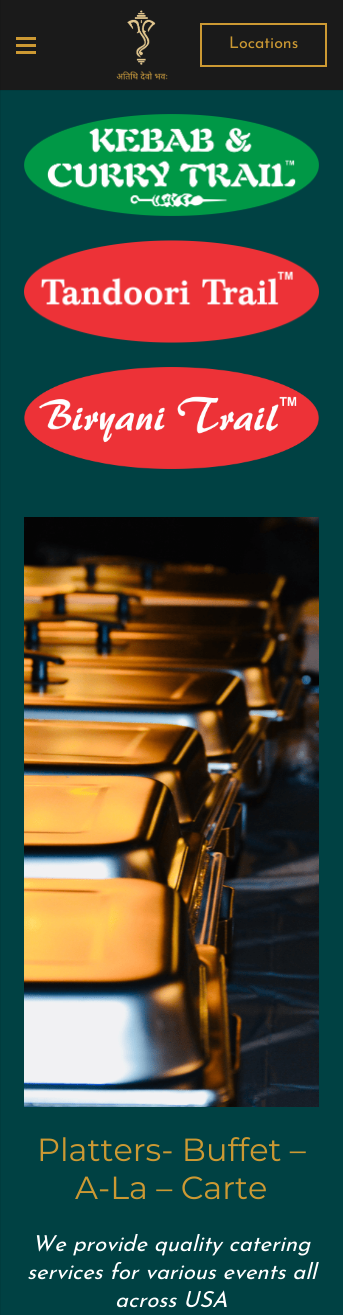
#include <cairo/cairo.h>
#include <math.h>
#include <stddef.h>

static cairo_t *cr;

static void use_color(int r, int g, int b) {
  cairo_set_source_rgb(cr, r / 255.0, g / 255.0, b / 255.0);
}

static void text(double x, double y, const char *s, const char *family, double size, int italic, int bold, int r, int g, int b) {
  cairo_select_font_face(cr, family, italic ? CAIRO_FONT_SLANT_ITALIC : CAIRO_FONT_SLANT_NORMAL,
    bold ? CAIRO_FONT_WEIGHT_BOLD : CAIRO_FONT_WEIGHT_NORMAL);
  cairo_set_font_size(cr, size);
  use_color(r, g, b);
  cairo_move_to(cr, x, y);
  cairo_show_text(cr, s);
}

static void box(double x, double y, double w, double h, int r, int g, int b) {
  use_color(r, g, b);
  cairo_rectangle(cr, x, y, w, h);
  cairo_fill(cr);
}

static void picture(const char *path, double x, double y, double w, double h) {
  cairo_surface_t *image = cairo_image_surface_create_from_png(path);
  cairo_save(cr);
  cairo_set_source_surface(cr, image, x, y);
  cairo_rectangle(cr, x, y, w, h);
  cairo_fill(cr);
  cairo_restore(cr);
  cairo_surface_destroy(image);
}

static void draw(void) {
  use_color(0, 65, 67);
  cairo_paint(cr);
  box(0, 90, 343, 1, 0, 60, 62);
  box(0, 90, 1, 1, 0, 55, 57);
  box(1, 0, 342, 90, 26, 26, 26);
  box(0, 0, 1, 90, 24, 24, 24);
  box(16, 44, 20, 3, 204, 153, 51);
  box(16, 37, 20, 3, 204, 153, 51);
  box(16, 51, 20, 3, 204, 153, 51);
  picture("img_01.png", 116, 10, 52, 71);
  cairo_rectangle(cr, 201, 24, 125, 42);
  cairo_stroke(cr);
  box(0, 91, 1, 1224, 0, 60, 62);
  picture("img_02.png", 24, 114, 295, 102);
  picture("img_03.png", 24, 240, 295, 103);
  picture("img_04.png", 24, 367, 295, 102);
  picture("img_05.png", 24, 517, 295, 590);
  text(229, 48, "Locations", "Josefin Sans", 16, 0, 0, 204, 153, 51);
  text(37, 1161, "Platters- Buffet –", "Montserrat", 32, 0, 0, 204, 153, 51);
  text(75, 1199, "A-La – Carte", "Montserrat", 32, 0, 0, 204, 153, 51);
  text(32, 1251, "We provide quality catering", "Josefin Sans", 22, 1, 0, 255, 255, 255);
  text(27, 1279, "services for various events all", "Josefin Sans", 22, 1, 0, 255, 255, 255);
  text(115, 1307, "across USA", "Josefin Sans", 22, 1, 0, 255, 255, 255);
}

int main(void) {
  cairo_surface_t *surface = cairo_image_surface_create(CAIRO_FORMAT_RGB24, 343, 1315);
  cr = cairo_create(surface);
  cairo_font_options_t *options = cairo_font_options_create();
  cairo_font_options_set_hint_metrics(options, CAIRO_HINT_METRICS_OFF);
  cairo_font_options_set_hint_style(options, CAIRO_HINT_STYLE_NONE);
  cairo_set_font_options(cr, options);
  cairo_set_miter_limit(cr, 4);
  draw();
  cairo_surface_write_to_png(surface, "out.png");
  cairo_font_options_destroy(options);
  cairo_destroy(cr);
  cairo_surface_destroy(surface);
  return 0;
}
